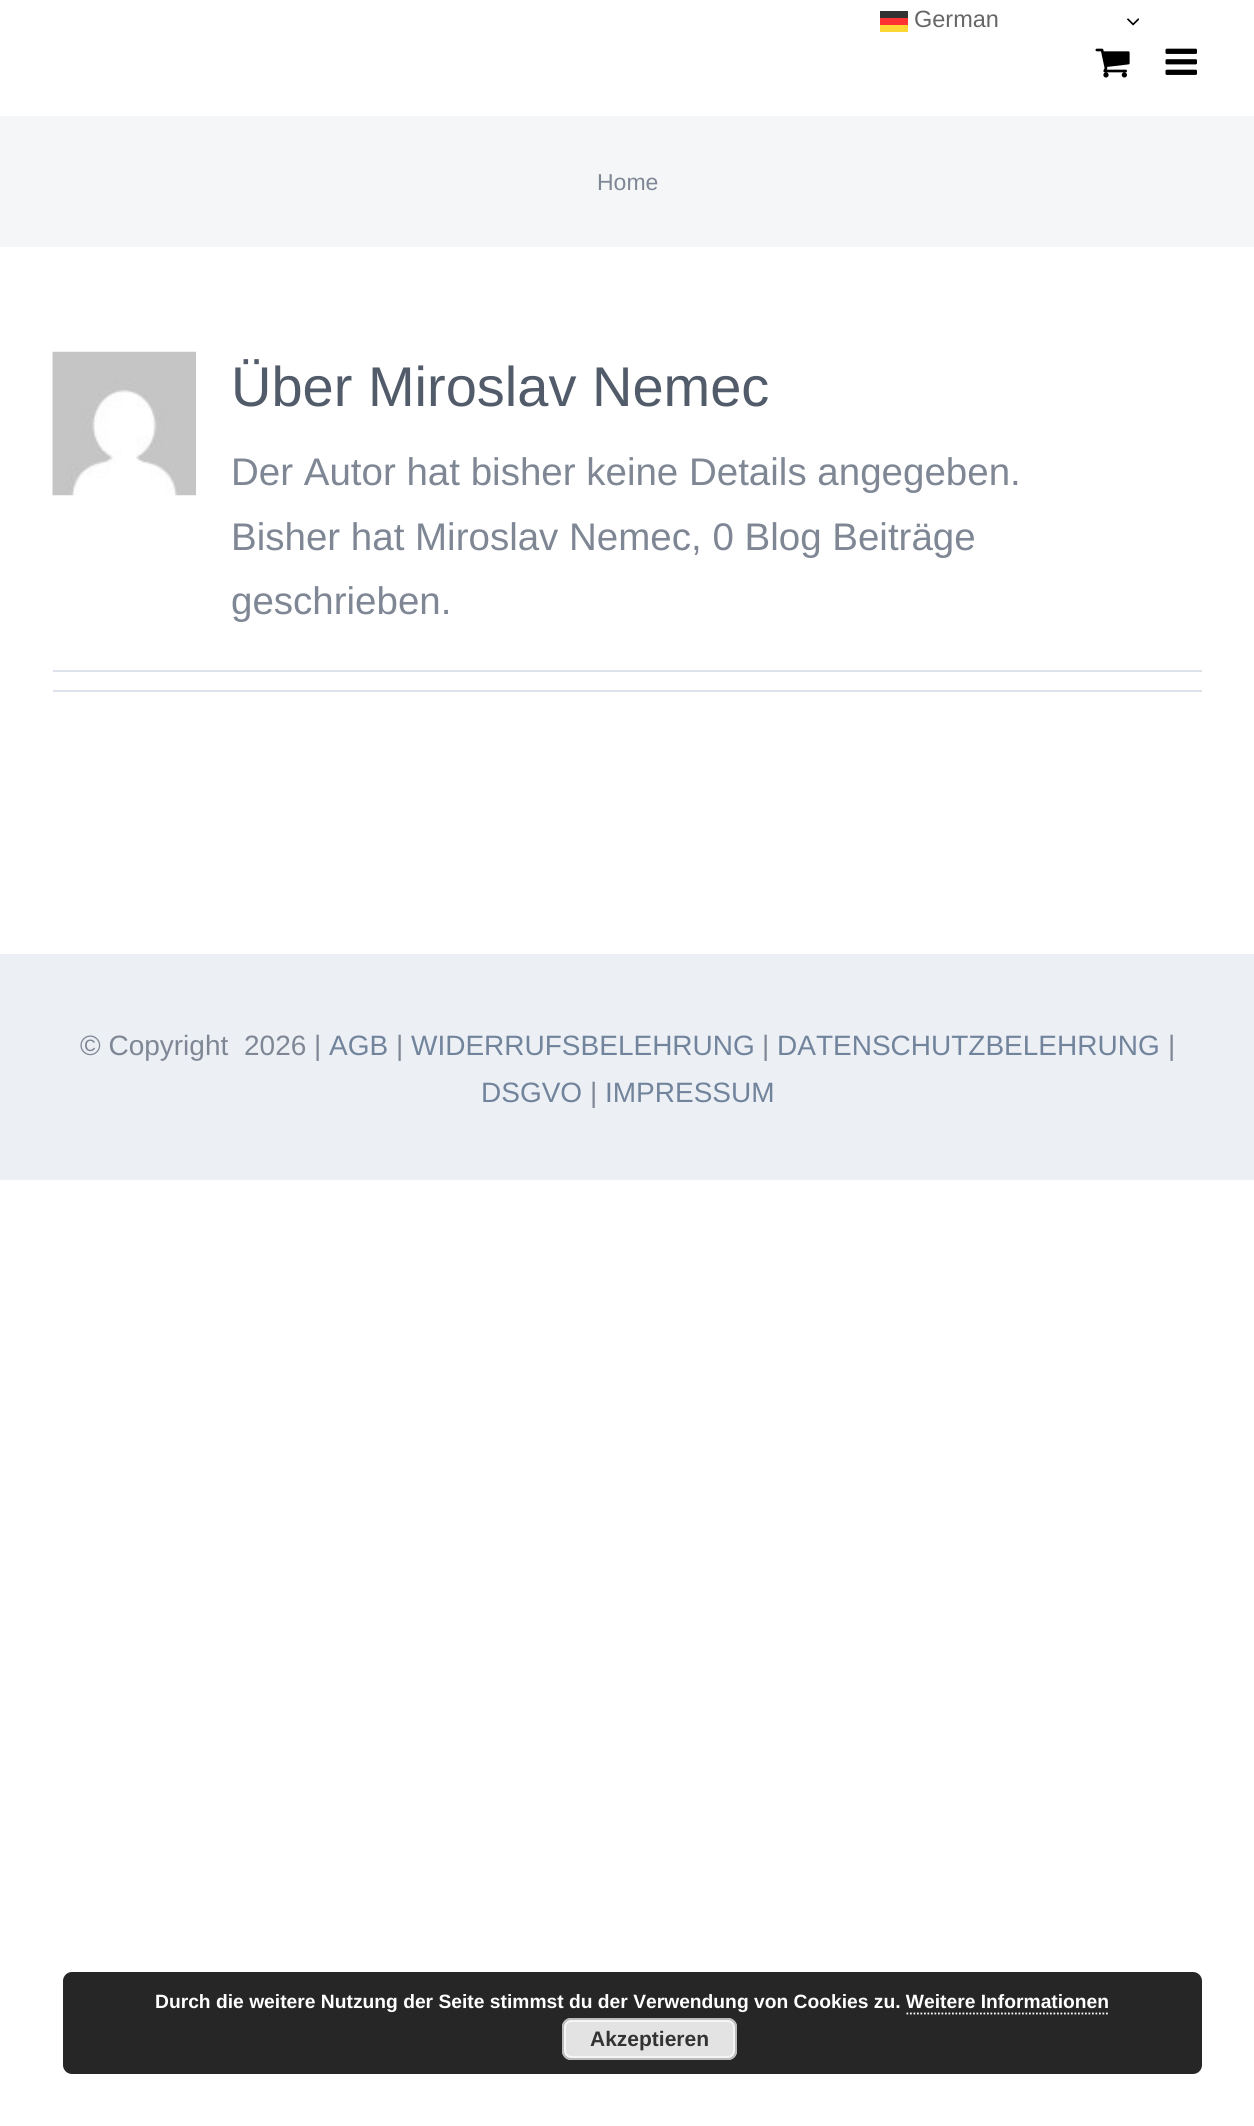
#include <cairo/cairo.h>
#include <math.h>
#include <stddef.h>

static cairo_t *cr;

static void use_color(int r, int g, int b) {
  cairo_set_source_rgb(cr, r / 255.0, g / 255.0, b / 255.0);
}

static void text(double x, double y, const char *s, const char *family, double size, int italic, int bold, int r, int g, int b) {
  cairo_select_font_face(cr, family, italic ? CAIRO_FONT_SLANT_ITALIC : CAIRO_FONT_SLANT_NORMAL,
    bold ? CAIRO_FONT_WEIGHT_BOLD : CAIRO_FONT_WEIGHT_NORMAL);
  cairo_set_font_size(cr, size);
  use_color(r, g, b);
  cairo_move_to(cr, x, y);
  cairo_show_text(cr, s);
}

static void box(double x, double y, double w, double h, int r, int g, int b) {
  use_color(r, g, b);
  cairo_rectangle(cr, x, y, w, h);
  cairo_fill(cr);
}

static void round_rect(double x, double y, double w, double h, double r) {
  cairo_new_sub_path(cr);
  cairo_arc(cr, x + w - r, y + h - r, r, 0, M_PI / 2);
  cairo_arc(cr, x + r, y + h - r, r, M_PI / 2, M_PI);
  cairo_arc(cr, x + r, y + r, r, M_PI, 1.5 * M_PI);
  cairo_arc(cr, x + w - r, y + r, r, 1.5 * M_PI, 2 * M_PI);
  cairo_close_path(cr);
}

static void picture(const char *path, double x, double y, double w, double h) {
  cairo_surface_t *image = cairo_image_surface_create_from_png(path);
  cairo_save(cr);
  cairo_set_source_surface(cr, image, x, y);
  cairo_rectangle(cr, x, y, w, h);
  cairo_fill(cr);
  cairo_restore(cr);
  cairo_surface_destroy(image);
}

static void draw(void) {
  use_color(255, 255, 255);
  cairo_paint(cr);
  box(880, 11, 28, 7, 51, 51, 51);
  box(880, 18, 28, 7, 255, 51, 51);
  picture("img_01.png", 1127, 18, 12, 8);
  box(880, 25, 28, 7, 255, 214, 51);
  use_color(38, 38, 38);
  round_rect(63, 1972, 1139, 102, 9);
  cairo_fill(cr);
  cairo_new_path(cr);
  cairo_move_to(cr, 906.5, 2013.5);
  cairo_line_to(cr, 1109.5, 2013.5);
  use_color(255, 255, 255);
  cairo_set_line_width(cr, 1.8);
  cairo_set_dash(cr, (double[]){1.75, 1.75}, 2, 0);
  cairo_stroke(cr);
  use_color(227, 227, 227);
  round_rect(562, 2018, 175, 42, 9);
  cairo_fill(cr);
  round_rect(565, 2021, 169, 36, 6);
  use_color(246, 246, 246);
  cairo_set_line_width(cr, 2);
  cairo_set_dash(cr, NULL, 0, 0);
  cairo_stroke(cr);
  round_rect(563, 2019, 173, 40, 8);
  use_color(187, 187, 187);
  cairo_stroke(cr);
  picture("img_02.png", 1095, 48, 35, 30);
  picture("img_03.png", 1165, 48, 32, 27);
  box(0, 116, 1254, 131, 244, 246, 248);
  picture("img_04.png", 52, 351, 144, 145);
  box(53, 670, 1149, 2, 219, 226, 234);
  box(53, 690, 1149, 2, 219, 226, 234);
  box(0, 954, 1254, 226, 236, 240, 245);
  text(914, 27, "German", "Liberation Sans", 23.5, 0, 0, 102, 102, 102);
  text(155, 2008, "Durch die weitere Nutzung der Seite stimmst du der Verwendung von Cookies zu. Weitere Informationen", "Liberation Sans", 19.25, 0, 1, 255, 255, 255);
  text(590, 2046, "Akzeptieren", "Liberation Sans", 21, 0, 1, 51, 51, 51);
  text(597, 190, "Home", "Liberation Sans", 23, 0, 0, 127, 135, 149);
  text(231, 406, "Über Miroslav Nemec", "Liberation Sans", 56, 0, 0, 81, 91, 105);
  text(231, 485, "Der Autor hat bisher keine Details angegeben.", "Liberation Sans", 38.5, 0, 0, 127, 135, 149);
  text(231, 550, "Bisher hat Miroslav Nemec, 0 Blog Beiträge", "Liberation Sans", 38.5, 0, 0, 127, 135, 149);
  text(231, 614, "geschrieben.", "Liberation Sans", 38.5, 0, 0, 127, 135, 149);
  text(80, 1055, "© Copyright", "Liberation Sans", 28, 0, 0, 127, 135, 149);
  text(244, 1055, "2026 |", "Liberation Sans", 28, 0, 0, 127, 135, 149);
  text(329, 1055, "AGB", "Liberation Sans", 28, 0, 0, 114, 132, 156);
  text(396, 1055, "|", "Liberation Sans", 28, 0, 0, 127, 135, 149);
  text(411, 1055, "WIDERRUFSBELEHRUNG", "Liberation Sans", 28, 0, 0, 114, 132, 156);
  text(762, 1055, "|", "Liberation Sans", 28, 0, 0, 127, 135, 149);
  text(777, 1055, "DATENSCHUTZBELEHRUNG", "Liberation Sans", 28, 0, 0, 114, 132, 156);
  text(1168, 1055, "|", "Liberation Sans", 28, 0, 0, 127, 135, 149);
  text(481, 1102, "DSGVO", "Liberation Sans", 28, 0, 0, 114, 132, 156);
  text(590, 1102, "|", "Liberation Sans", 28, 0, 0, 127, 135, 149);
  text(605, 1102, "IMPRESSUM", "Liberation Sans", 28, 0, 0, 114, 132, 156);
}

int main(void) {
  cairo_surface_t *surface = cairo_image_surface_create(CAIRO_FORMAT_RGB24, 1254, 2126);
  cr = cairo_create(surface);
  cairo_font_options_t *options = cairo_font_options_create();
  cairo_font_options_set_hint_metrics(options, CAIRO_HINT_METRICS_OFF);
  cairo_font_options_set_hint_style(options, CAIRO_HINT_STYLE_NONE);
  cairo_set_font_options(cr, options);
  cairo_set_miter_limit(cr, 4);
  draw();
  cairo_surface_write_to_png(surface, "out.png");
  cairo_font_options_destroy(options);
  cairo_destroy(cr);
  cairo_surface_destroy(surface);
  return 0;
}
